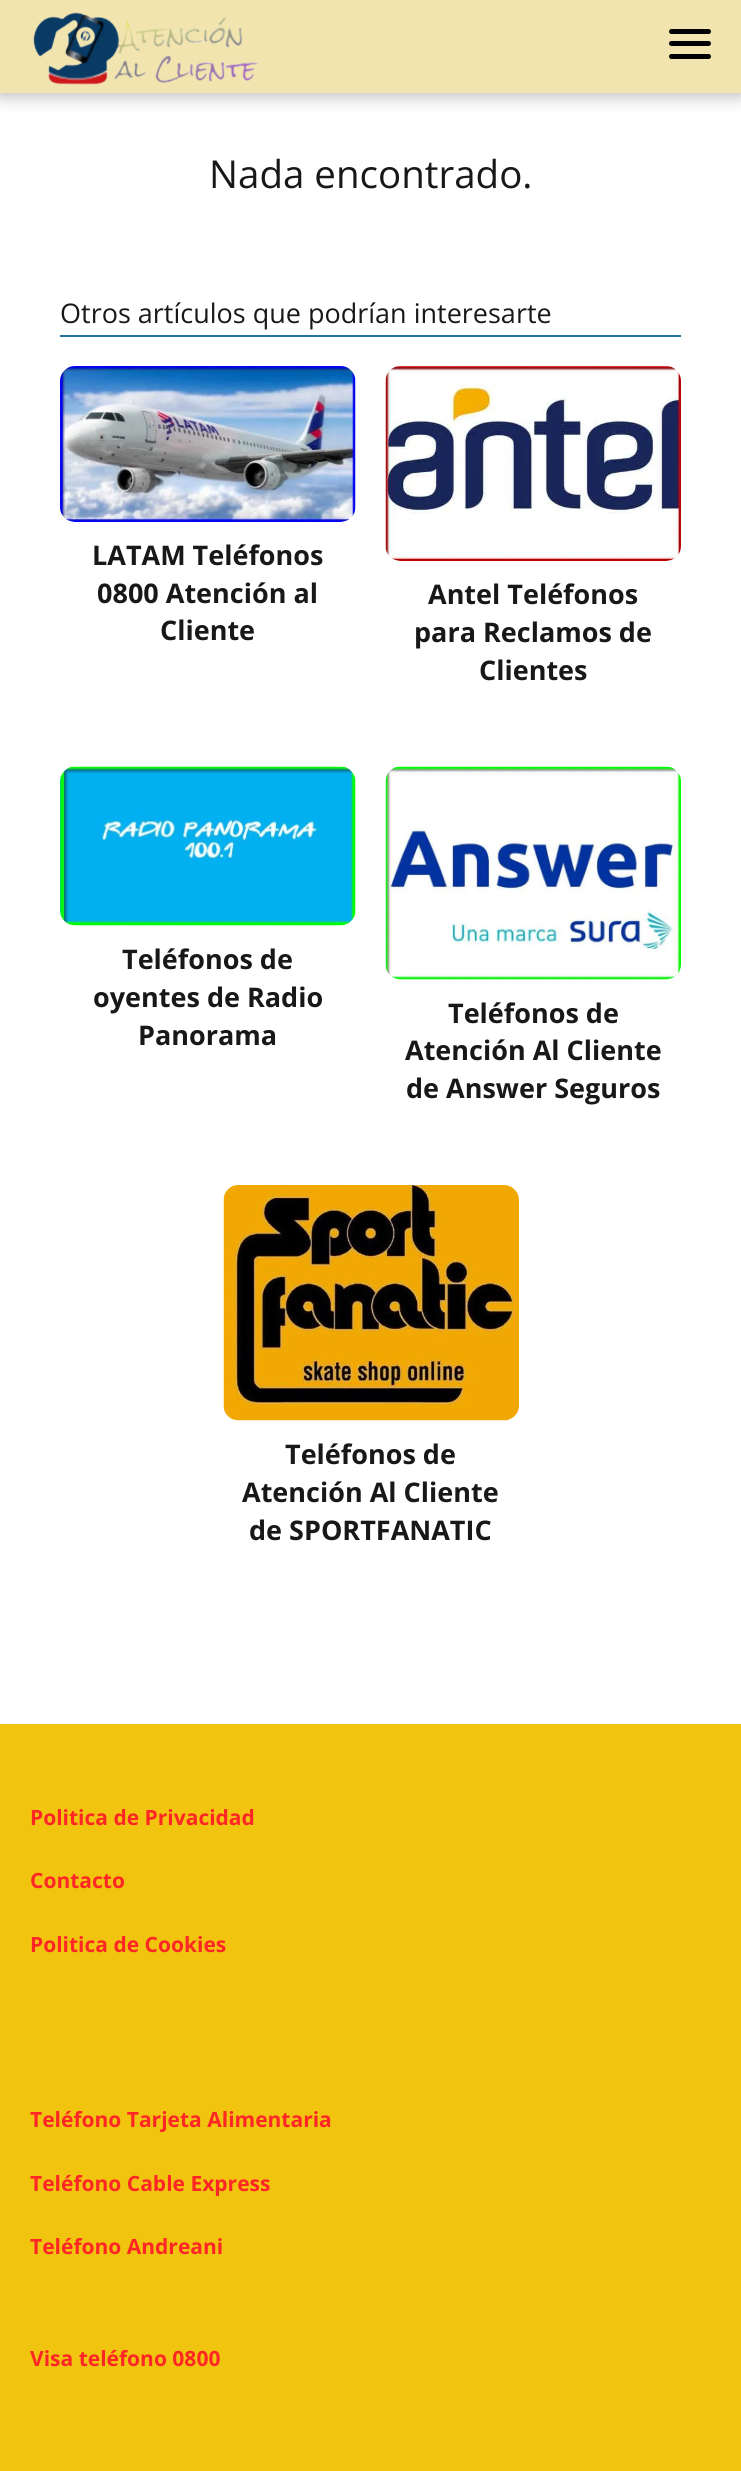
#include <cairo/cairo.h>
#include <math.h>
#include <stddef.h>

static cairo_t *cr;

static void use_color(int r, int g, int b) {
  cairo_set_source_rgb(cr, r / 255.0, g / 255.0, b / 255.0);
}

static void text(double x, double y, const char *s, const char *family, double size, int italic, int bold, int r, int g, int b) {
  cairo_select_font_face(cr, family, italic ? CAIRO_FONT_SLANT_ITALIC : CAIRO_FONT_SLANT_NORMAL,
    bold ? CAIRO_FONT_WEIGHT_BOLD : CAIRO_FONT_WEIGHT_NORMAL);
  cairo_set_font_size(cr, size);
  use_color(r, g, b);
  cairo_move_to(cr, x, y);
  cairo_show_text(cr, s);
}

static void box(double x, double y, double w, double h, int r, int g, int b) {
  use_color(r, g, b);
  cairo_rectangle(cr, x, y, w, h);
  cairo_fill(cr);
}

static void round_rect(double x, double y, double w, double h, double r) {
  cairo_new_sub_path(cr);
  cairo_arc(cr, x + w - r, y + h - r, r, 0, M_PI / 2);
  cairo_arc(cr, x + r, y + h - r, r, M_PI / 2, M_PI);
  cairo_arc(cr, x + r, y + r, r, M_PI, 1.5 * M_PI);
  cairo_arc(cr, x + w - r, y + r, r, 1.5 * M_PI, 2 * M_PI);
  cairo_close_path(cr);
}

static void shadow(double x, double y, double w, double h, double r, double blur, double alpha) {
  cairo_push_group_with_content(cr, CAIRO_CONTENT_ALPHA);
  cairo_set_operator(cr, CAIRO_OPERATOR_SOURCE);
  for (int i = 15; i >= -15 && fmin(w, h) + blur * i / 3 > 0; i -= 2) {
    double e = blur * i / 6;
    cairo_set_source_rgba(cr, 0, 0, 0, alpha * erfc((i - 1) / 8.5) / 2);
    round_rect(x - e, y - e, w + 2 * e, h + 2 * e, fmax(0, fmin(r + e + blur * .6, fmin(w, h) / 2 + e)));
    cairo_fill(cr);
  }
  cairo_pattern_t *soft = cairo_pop_group(cr);
  cairo_mask(cr, soft);
  cairo_pattern_destroy(soft);
}

static void picture(const char *path, double x, double y, double w, double h) {
  cairo_surface_t *image = cairo_image_surface_create_from_png(path);
  cairo_save(cr);
  cairo_set_source_surface(cr, image, x, y);
  cairo_rectangle(cr, x, y, w, h);
  cairo_fill(cr);
  cairo_restore(cr);
  cairo_surface_destroy(image);
}

static void draw(void) {
  use_color(255, 255, 255);
  cairo_paint(cr);
  use_color(0, 0, 0);
  shadow(0, 2, 741, 93, 0, 9, 0.3);
  box(0, 0, 741, 93, 242, 228, 174);
  picture("img_01.png", 33, 12, 225, 73);
  use_color(0, 0, 0);
  round_rect(669, 29, 42, 5, 2.5);
  cairo_fill(cr);
  round_rect(669, 41, 42, 5, 2.5);
  cairo_fill(cr);
  round_rect(669, 54, 42, 5, 2.5);
  cairo_fill(cr);
  box(60, 335, 621, 2, 36, 113, 163);
  picture("img_02.png", 60, 366, 296, 156);
  picture("img_03.png", 385, 366, 296, 195);
  picture("img_04.png", 60, 766, 296, 160);
  picture("img_05.png", 385, 766, 296, 214);
  picture("img_06.png", 223, 1185, 296, 236);
  box(0, 1724, 741, 747, 241, 196, 15);
  text(209, 188, "Nada encontrado.", "Open Sans", 38.5, 0, 0, 24, 24, 24);
  text(60, 323, "Otros artículos que podrían interesarte", "Open Sans", 27, 0, 0, 24, 24, 24);
  text(92, 565, "LATAM Teléfonos", "Open Sans", 27, 0, 1, 24, 24, 24);
  text(97, 603, "0800 Atención al", "Open Sans", 27, 0, 1, 24, 24, 24);
  text(160, 640, "Cliente", "Open Sans", 27, 0, 1, 24, 24, 24);
  text(428, 604, "Antel Teléfonos", "Open Sans", 27, 0, 1, 24, 24, 24);
  text(414, 642, "para Reclamos de", "Open Sans", 27, 0, 1, 24, 24, 24);
  text(479, 680, "Clientes", "Open Sans", 27, 0, 1, 24, 24, 24);
  text(122, 969, "Teléfonos de", "Open Sans", 27, 0, 1, 24, 24, 24);
  text(93, 1007, "oyentes de Radio", "Open Sans", 27, 0, 1, 24, 24, 24);
  text(138, 1045, "Panorama", "Open Sans", 27, 0, 1, 24, 24, 24);
  text(448, 1023, "Teléfonos de", "Open Sans", 27, 0, 1, 24, 24, 24);
  text(405, 1060, "Atención Al Cliente", "Open Sans", 27, 0, 1, 24, 24, 24);
  text(406, 1098, "de Answer Seguros", "Open Sans", 27, 0, 1, 24, 24, 24);
  text(285, 1464, "Teléfonos de", "Open Sans", 27, 0, 1, 24, 24, 24);
  text(242, 1502, "Atención Al Cliente", "Open Sans", 27, 0, 1, 24, 24, 24);
  text(249, 1540, "de SPORTFANATIC", "Open Sans", 27, 0, 1, 24, 24, 24);
  text(30, 1825, "Politica de Privacidad", "Open Sans", 21, 0, 1, 255, 38, 38);
  text(30, 1888, "Contacto", "Open Sans", 21, 0, 1, 255, 38, 38);
  text(30, 1952, "Politica de Cookies", "Open Sans", 21, 0, 1, 255, 38, 38);
  text(30, 2127, "Teléfono Tarjeta Alimentaria", "Open Sans", 21, 0, 1, 255, 38, 38);
  text(30, 2191, "Teléfono Cable Express", "Open Sans", 21, 0, 1, 255, 38, 38);
  text(30, 2254, "Teléfono Andreani", "Open Sans", 21, 0, 1, 255, 38, 38);
  text(30, 2366, "Visa teléfono 0800", "Open Sans", 21, 0, 1, 255, 38, 38);
}

int main(void) {
  cairo_surface_t *surface = cairo_image_surface_create(CAIRO_FORMAT_RGB24, 741, 2471);
  cr = cairo_create(surface);
  cairo_font_options_t *options = cairo_font_options_create();
  cairo_font_options_set_hint_metrics(options, CAIRO_HINT_METRICS_OFF);
  cairo_font_options_set_hint_style(options, CAIRO_HINT_STYLE_NONE);
  cairo_set_font_options(cr, options);
  cairo_set_miter_limit(cr, 4);
  draw();
  cairo_surface_write_to_png(surface, "out.png");
  cairo_font_options_destroy(options);
  cairo_destroy(cr);
  cairo_surface_destroy(surface);
  return 0;
}
